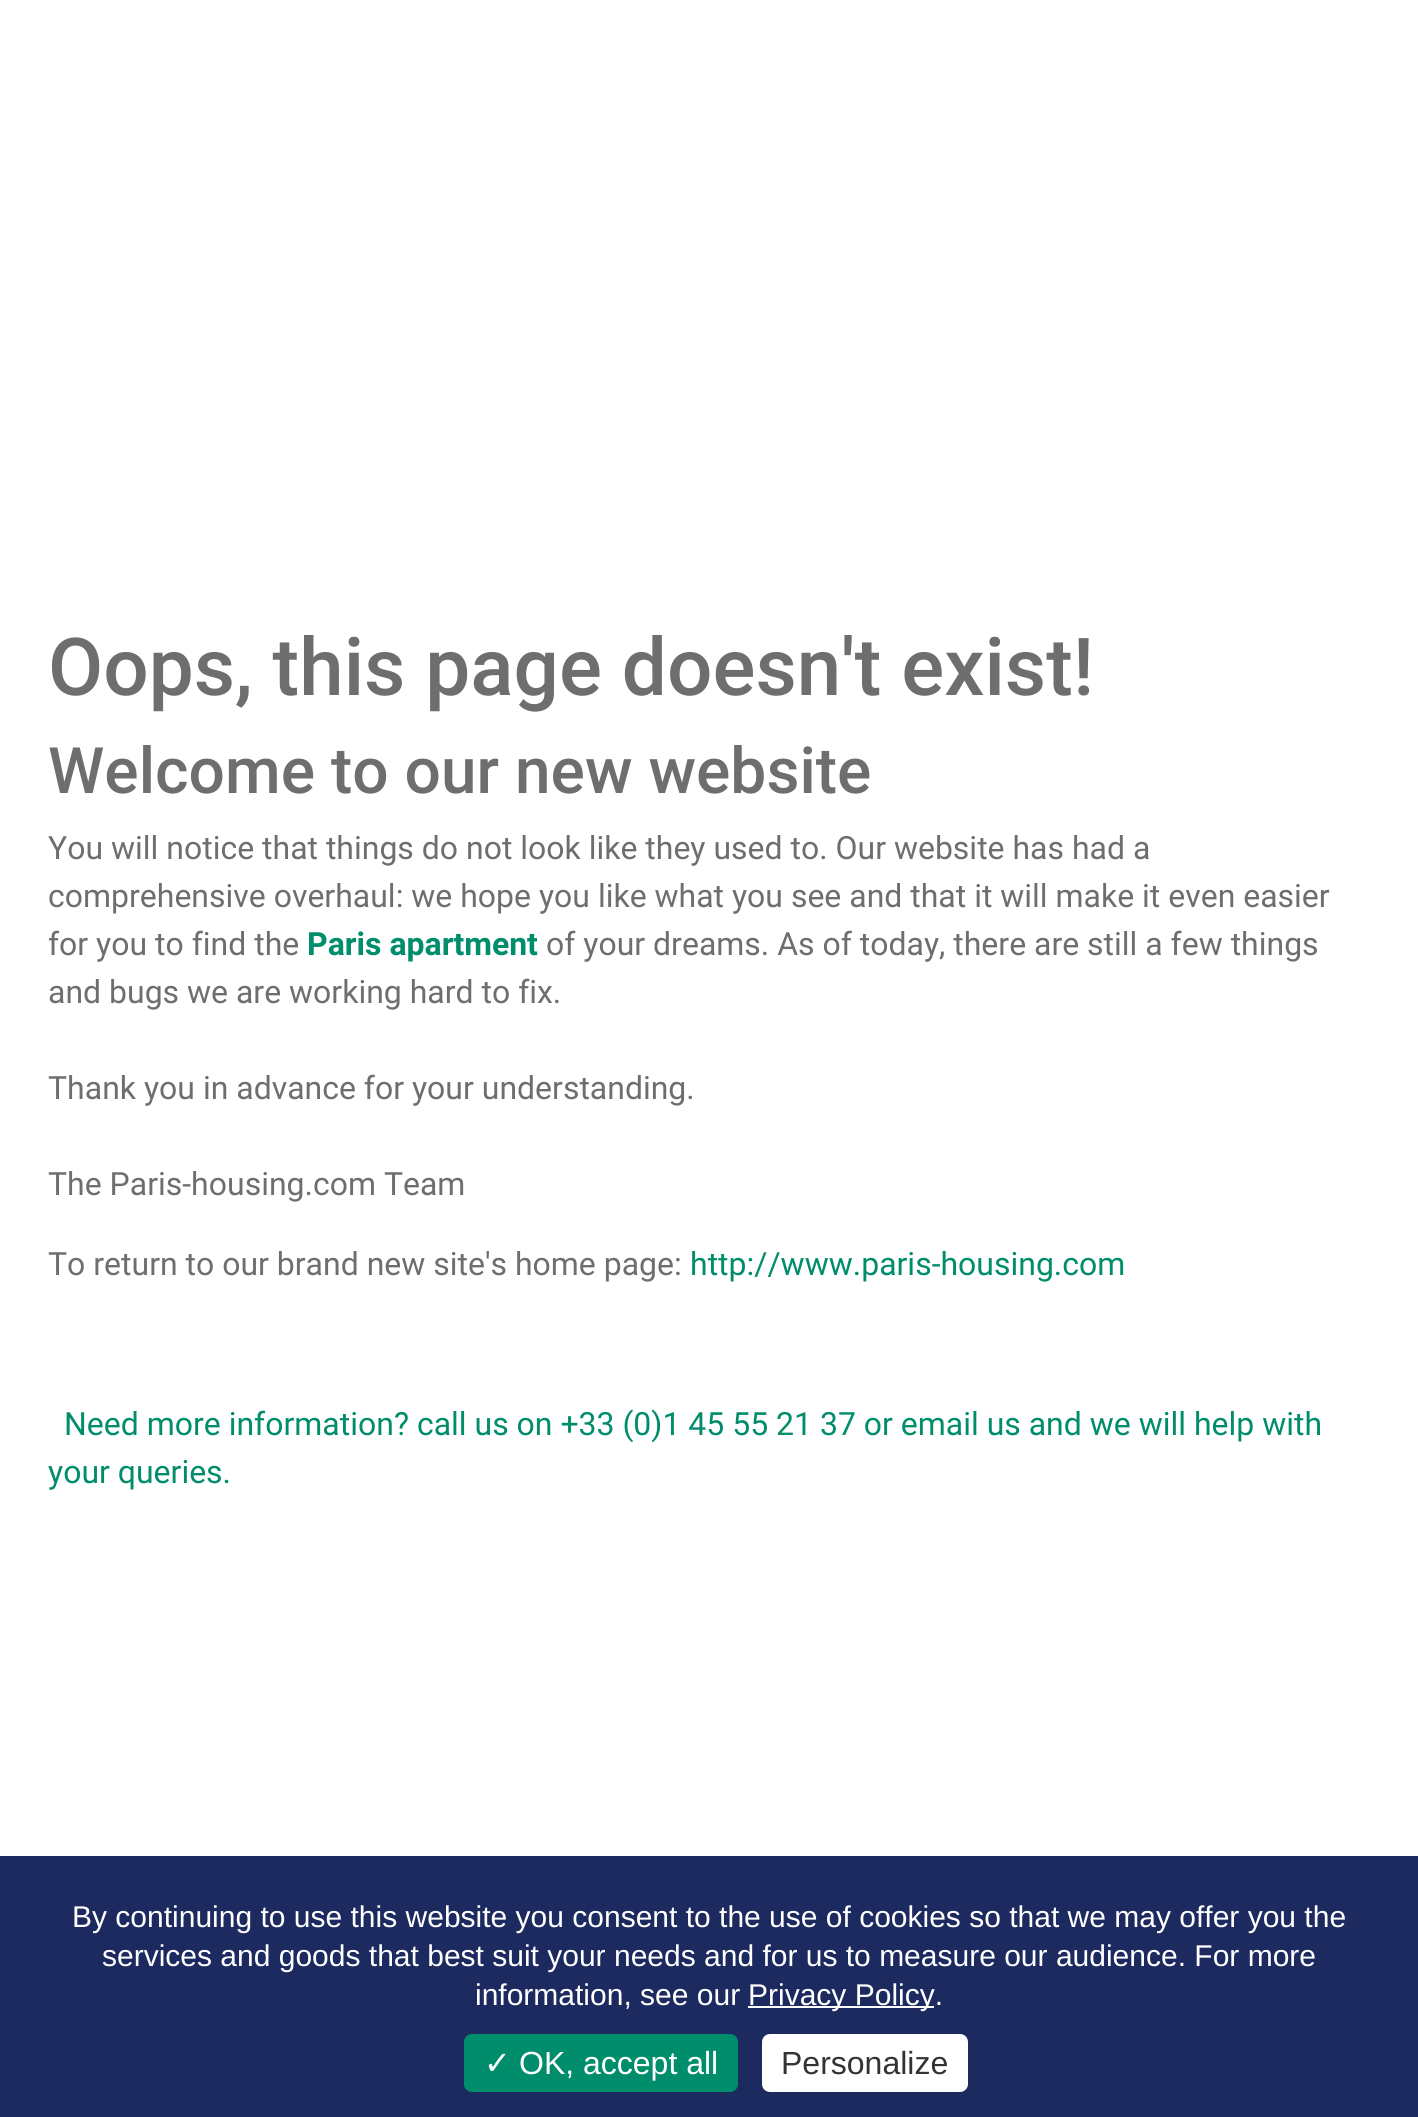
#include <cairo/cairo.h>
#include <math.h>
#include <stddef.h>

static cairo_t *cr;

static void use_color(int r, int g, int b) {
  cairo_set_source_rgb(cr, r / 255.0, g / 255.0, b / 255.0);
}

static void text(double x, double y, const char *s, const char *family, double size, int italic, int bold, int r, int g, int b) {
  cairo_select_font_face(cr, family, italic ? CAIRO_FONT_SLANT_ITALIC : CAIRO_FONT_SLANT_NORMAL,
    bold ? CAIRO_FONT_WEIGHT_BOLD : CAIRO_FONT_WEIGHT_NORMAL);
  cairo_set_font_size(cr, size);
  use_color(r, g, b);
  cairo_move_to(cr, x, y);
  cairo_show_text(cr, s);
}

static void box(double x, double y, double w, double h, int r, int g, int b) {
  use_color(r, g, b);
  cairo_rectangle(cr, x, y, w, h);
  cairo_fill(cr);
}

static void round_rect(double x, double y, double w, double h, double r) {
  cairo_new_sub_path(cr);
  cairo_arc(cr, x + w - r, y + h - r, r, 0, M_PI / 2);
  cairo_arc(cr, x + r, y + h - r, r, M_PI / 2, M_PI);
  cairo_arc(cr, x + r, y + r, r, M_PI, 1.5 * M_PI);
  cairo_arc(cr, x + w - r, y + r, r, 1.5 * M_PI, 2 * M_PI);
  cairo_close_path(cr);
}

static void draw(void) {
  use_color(255, 255, 255);
  cairo_paint(cr);
  box(0, 1856, 1418, 261, 28, 42, 95);
  box(748, 2006, 186, 2, 255, 255, 255);
  use_color(0, 141, 107);
  round_rect(464, 2034, 274, 58, 8);
  cairo_fill(cr);
  use_color(255, 255, 255);
  round_rect(762, 2034, 206, 58, 8);
  cairo_fill(cr);
  text(48, 695, "Oops, this page doesn't exist!", "Roboto Medium", 80, 0, 0, 110, 110, 110);
  text(48, 793, "Welcome to our new website", "Roboto Medium", 64, 0, 0, 110, 110, 110);
  text(48, 859, "You will notice that things do not look like they used to. Our website has had a", "Roboto", 32, 0, 0, 110, 110, 110);
  text(48, 907, "comprehensive overhaul: we hope you like what you see and that it will make it even easier", "Roboto", 32, 0, 0, 110, 110, 110);
  text(48, 955, "for you to find the", "Roboto", 32, 0, 0, 110, 110, 110);
  text(307, 955, "Paris apartment", "Roboto", 32, 0, 1, 0, 141, 107);
  text(546, 955, "of your dreams. As of today, there are still a few things", "Roboto", 32, 0, 0, 110, 110, 110);
  text(48, 1003, "and bugs we are working hard to fix.", "Roboto", 32, 0, 0, 110, 110, 110);
  text(48, 1099, "Thank you in advance for your understanding.", "Roboto", 32, 0, 0, 110, 110, 110);
  text(48, 1195, "The Paris-housing.com Team", "Roboto", 32, 0, 0, 110, 110, 110);
  text(48, 1275, "To return to our brand new site's home page:", "Roboto", 32, 0, 0, 110, 110, 110);
  text(690, 1275, "http://www.paris-housing.com", "Roboto", 32, 0, 0, 0, 141, 107);
  text(64, 1435, "Need more information? call us on +33 (0)1 45 55 21 37 or email us and we will help with", "Roboto", 32, 0, 0, 0, 141, 107);
  text(48, 1483, "your queries.", "Roboto", 32, 0, 0, 0, 141, 107);
  text(72, 1927, "By continuing to use this website you consent to the use of cookies so that we may offer you the", "Liberation Sans", 30, 0, 0, 255, 255, 255);
  text(102, 1966, "services and goods that best suit your needs and for us to measure our audience. For more", "Liberation Sans", 30, 0, 0, 255, 255, 255);
  text(475, 2005, "information, see our", "Liberation Sans", 30, 0, 0, 255, 255, 255);
  text(748, 2005, "Privacy Policy.", "Liberation Sans", 30, 0, 0, 255, 255, 255);
  text(484, 2074, "✓", "DejaVu Sans", 32, 0, 0, 255, 255, 255);
  text(519, 2074, "OK, accept all", "Liberation Sans", 32, 0, 0, 255, 255, 255);
  text(781, 2074, "Personalize", "Liberation Sans", 32, 0, 0, 51, 51, 51);
}

int main(void) {
  cairo_surface_t *surface = cairo_image_surface_create(CAIRO_FORMAT_RGB24, 1418, 2117);
  cr = cairo_create(surface);
  cairo_font_options_t *options = cairo_font_options_create();
  cairo_font_options_set_hint_metrics(options, CAIRO_HINT_METRICS_OFF);
  cairo_font_options_set_hint_style(options, CAIRO_HINT_STYLE_NONE);
  cairo_set_font_options(cr, options);
  cairo_set_miter_limit(cr, 4);
  draw();
  cairo_surface_write_to_png(surface, "out.png");
  cairo_font_options_destroy(options);
  cairo_destroy(cr);
  cairo_surface_destroy(surface);
  return 0;
}
